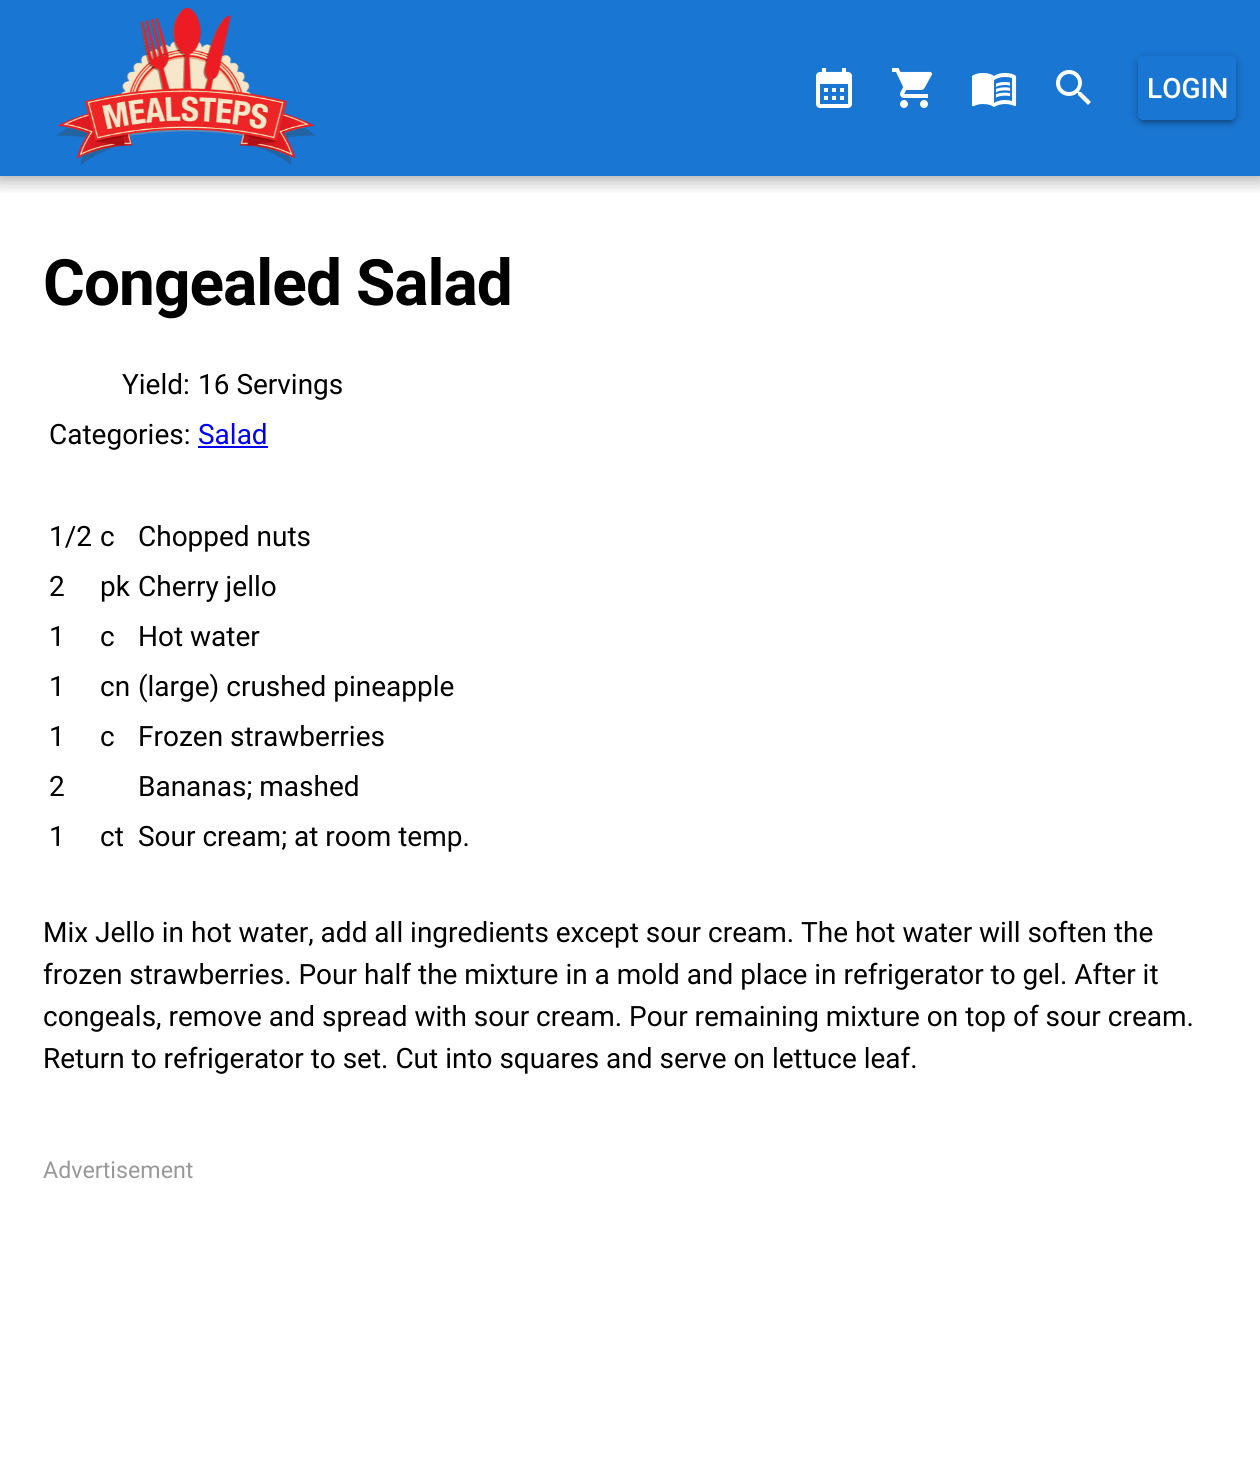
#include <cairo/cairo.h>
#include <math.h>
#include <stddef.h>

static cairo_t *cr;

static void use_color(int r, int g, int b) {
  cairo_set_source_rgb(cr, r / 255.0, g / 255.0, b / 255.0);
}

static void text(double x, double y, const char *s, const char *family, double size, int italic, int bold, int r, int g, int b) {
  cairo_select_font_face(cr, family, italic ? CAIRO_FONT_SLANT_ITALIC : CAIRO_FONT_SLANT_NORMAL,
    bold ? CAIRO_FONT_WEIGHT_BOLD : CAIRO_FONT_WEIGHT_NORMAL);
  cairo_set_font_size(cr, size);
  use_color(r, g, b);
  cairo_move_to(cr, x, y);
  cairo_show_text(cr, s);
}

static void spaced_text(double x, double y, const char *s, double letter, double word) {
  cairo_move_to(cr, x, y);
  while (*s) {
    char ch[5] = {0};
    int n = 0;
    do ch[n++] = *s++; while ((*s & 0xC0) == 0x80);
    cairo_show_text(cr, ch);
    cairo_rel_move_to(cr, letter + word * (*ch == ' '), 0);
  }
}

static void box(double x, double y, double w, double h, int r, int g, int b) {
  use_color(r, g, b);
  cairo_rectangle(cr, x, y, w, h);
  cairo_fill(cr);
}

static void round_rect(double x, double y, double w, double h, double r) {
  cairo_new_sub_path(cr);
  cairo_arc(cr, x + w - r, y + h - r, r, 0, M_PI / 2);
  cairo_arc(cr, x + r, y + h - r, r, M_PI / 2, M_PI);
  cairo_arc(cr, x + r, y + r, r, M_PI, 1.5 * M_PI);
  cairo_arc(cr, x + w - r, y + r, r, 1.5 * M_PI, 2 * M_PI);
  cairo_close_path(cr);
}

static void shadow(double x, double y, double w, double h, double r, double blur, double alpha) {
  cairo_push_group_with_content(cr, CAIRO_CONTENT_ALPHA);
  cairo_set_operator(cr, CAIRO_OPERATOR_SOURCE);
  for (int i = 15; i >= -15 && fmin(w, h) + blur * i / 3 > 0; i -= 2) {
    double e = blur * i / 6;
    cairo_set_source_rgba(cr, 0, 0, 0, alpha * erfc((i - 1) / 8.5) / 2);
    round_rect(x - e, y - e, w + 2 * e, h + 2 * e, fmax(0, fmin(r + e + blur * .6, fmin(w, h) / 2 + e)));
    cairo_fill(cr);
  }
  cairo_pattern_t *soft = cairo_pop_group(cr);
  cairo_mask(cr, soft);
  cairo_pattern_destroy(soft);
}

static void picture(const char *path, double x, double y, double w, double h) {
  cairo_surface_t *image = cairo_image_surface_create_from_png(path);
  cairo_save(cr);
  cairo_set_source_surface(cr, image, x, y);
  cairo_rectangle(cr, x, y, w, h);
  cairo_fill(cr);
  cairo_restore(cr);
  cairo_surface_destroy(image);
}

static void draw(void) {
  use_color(255, 255, 255);
  cairo_paint(cr);
  box(0, 0, 1260, 176, 25, 118, 210);
  picture("img_01.png", 56, 8, 260, 157);
  picture("img_02.png", 816, 68, 36, 40);
  picture("img_03.png", 891, 68, 41, 40);
  picture("img_04.png", 971, 73, 46, 34);
  picture("img_05.png", 1056, 70, 35, 35);
  cairo_save(cr);
  cairo_rectangle(cr, 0, 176, 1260, 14);
  cairo_clip(cr);
  use_color(0, 0, 0);
  shadow(0, 0, 1260, 176, 0, 10, 0.24);
  cairo_restore(cr);
  cairo_save(cr);
  cairo_rectangle(cr, 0, 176, 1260, 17);
  cairo_clip(cr);
  use_color(0, 0, 0);
  shadow(-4, -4, 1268, 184, 0, 10, 0.2);
  cairo_restore(cr);
  cairo_save(cr);
  cairo_rectangle(cr, 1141, 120, 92, 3);
  cairo_clip(cr);
  use_color(0, 0, 0);
  shadow(1142, 66, 90, 56, 2, 1, 0.12);
  cairo_restore(cr);
  cairo_save(cr);
  cairo_set_fill_rule(cr, CAIRO_FILL_RULE_EVEN_ODD);
  cairo_new_path(cr);
  cairo_move_to(cr, 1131, 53);
  cairo_line_to(cr, 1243, 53);
  cairo_line_to(cr, 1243, 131);
  cairo_line_to(cr, 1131, 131);
  cairo_close_path(cr);
  cairo_move_to(cr, 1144, 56);
  cairo_line_to(cr, 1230, 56);
  cairo_curve_to(cr, 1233.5, 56, 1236, 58.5, 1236, 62);
  cairo_line_to(cr, 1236, 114);
  cairo_curve_to(cr, 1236, 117.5, 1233.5, 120, 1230, 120);
  cairo_line_to(cr, 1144, 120);
  cairo_curve_to(cr, 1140.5, 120, 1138, 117.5, 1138, 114);
  cairo_line_to(cr, 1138, 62);
  cairo_curve_to(cr, 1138, 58.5, 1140.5, 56, 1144, 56);
  cairo_close_path(cr);
  cairo_clip(cr);
  use_color(0, 0, 0);
  shadow(1138, 60, 98, 64, 6, 2, 0.14);
  cairo_restore(cr);
  cairo_save(cr);
  cairo_set_fill_rule(cr, CAIRO_FILL_RULE_EVEN_ODD);
  cairo_new_path(cr);
  cairo_move_to(cr, 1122, 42);
  cairo_line_to(cr, 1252, 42);
  cairo_line_to(cr, 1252, 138);
  cairo_line_to(cr, 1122, 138);
  cairo_close_path(cr);
  cairo_move_to(cr, 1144, 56);
  cairo_line_to(cr, 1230, 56);
  cairo_curve_to(cr, 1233.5, 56, 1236, 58.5, 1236, 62);
  cairo_line_to(cr, 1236, 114);
  cairo_curve_to(cr, 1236, 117.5, 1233.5, 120, 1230, 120);
  cairo_line_to(cr, 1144, 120);
  cairo_curve_to(cr, 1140.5, 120, 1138, 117.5, 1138, 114);
  cairo_line_to(cr, 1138, 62);
  cairo_curve_to(cr, 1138, 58.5, 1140.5, 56, 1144, 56);
  cairo_close_path(cr);
  cairo_clip(cr);
  use_color(0, 0, 0);
  shadow(1138, 58, 98, 64, 6, 5, 0.2);
  cairo_restore(cr);
  box(198, 446, 70, 2, 0, 0, 238);
  text(1147, 98, "LOGIN", "Roboto Medium", 28, 0, 0, 255, 255, 255);
  cairo_select_font_face(cr, "Roboto", CAIRO_FONT_SLANT_NORMAL, CAIRO_FONT_WEIGHT_BOLD);
  cairo_set_font_size(cr, 64);
  use_color(0, 0, 0);
  spaced_text(43, 305, "Congealed Salad", -1, 0);
  text(122, 394, "Yield:", "Roboto", 28, 0, 0, 0, 0, 0);
  text(198, 394, "16 Servings", "Roboto", 28, 0, 0, 0, 0, 0);
  text(49, 444, "Categories:", "Roboto", 28, 0, 0, 0, 0, 0);
  text(198, 444, "Salad", "Roboto", 28, 0, 0, 0, 0, 238);
  text(49, 546, "1/2", "Roboto", 28, 0, 0, 0, 0, 0);
  text(100, 546, "c", "Roboto", 28, 0, 0, 0, 0, 0);
  text(138, 546, "Chopped nuts", "Roboto", 28, 0, 0, 0, 0, 0);
  text(49, 596, "2", "Roboto", 28, 0, 0, 0, 0, 0);
  text(100, 596, "pk", "Roboto", 28, 0, 0, 0, 0, 0);
  text(138, 596, "Cherry jello", "Roboto", 28, 0, 0, 0, 0, 0);
  text(49, 646, "1", "Roboto", 28, 0, 0, 0, 0, 0);
  text(100, 646, "c", "Roboto", 28, 0, 0, 0, 0, 0);
  text(138, 646, "Hot water", "Roboto", 28, 0, 0, 0, 0, 0);
  text(49, 696, "1", "Roboto", 28, 0, 0, 0, 0, 0);
  text(100, 696, "cn", "Roboto", 28, 0, 0, 0, 0, 0);
  text(138, 696, "(large) crushed pineapple", "Roboto", 28, 0, 0, 0, 0, 0);
  text(49, 746, "1", "Roboto", 28, 0, 0, 0, 0, 0);
  text(100, 746, "c", "Roboto", 28, 0, 0, 0, 0, 0);
  text(138, 746, "Frozen strawberries", "Roboto", 28, 0, 0, 0, 0, 0);
  text(49, 796, "2", "Roboto", 28, 0, 0, 0, 0, 0);
  text(138, 796, "Bananas; mashed", "Roboto", 28, 0, 0, 0, 0, 0);
  text(49, 846, "1", "Roboto", 28, 0, 0, 0, 0, 0);
  text(100, 846, "ct", "Roboto", 28, 0, 0, 0, 0, 0);
  text(138, 846, "Sour cream; at room temp.", "Roboto", 28, 0, 0, 0, 0, 0);
  text(43, 942, "Mix Jello in hot water, add all ingredients except sour cream. The hot water will soften the", "Roboto", 28, 0, 0, 0, 0, 0);
  text(43, 984, "frozen strawberries. Pour half the mixture in a mold and place in refrigerator to gel. After it", "Roboto", 28, 0, 0, 0, 0, 0);
  text(43, 1026, "congeals, remove and spread with sour cream. Pour remaining mixture on top of sour cream.", "Roboto", 28, 0, 0, 0, 0, 0);
  text(43, 1068, "Return to refrigerator to set. Cut into squares and serve on lettuce leaf.", "Roboto", 28, 0, 0, 0, 0, 0);
  text(43, 1178, "Advertisement", "Roboto", 23.25, 0, 0, 153, 153, 153);
}

int main(void) {
  cairo_surface_t *surface = cairo_image_surface_create(CAIRO_FORMAT_RGB24, 1260, 1459);
  cr = cairo_create(surface);
  cairo_font_options_t *options = cairo_font_options_create();
  cairo_font_options_set_hint_metrics(options, CAIRO_HINT_METRICS_OFF);
  cairo_font_options_set_hint_style(options, CAIRO_HINT_STYLE_NONE);
  cairo_set_font_options(cr, options);
  cairo_set_miter_limit(cr, 4);
  draw();
  cairo_surface_write_to_png(surface, "out.png");
  cairo_font_options_destroy(options);
  cairo_destroy(cr);
  cairo_surface_destroy(surface);
  return 0;
}
